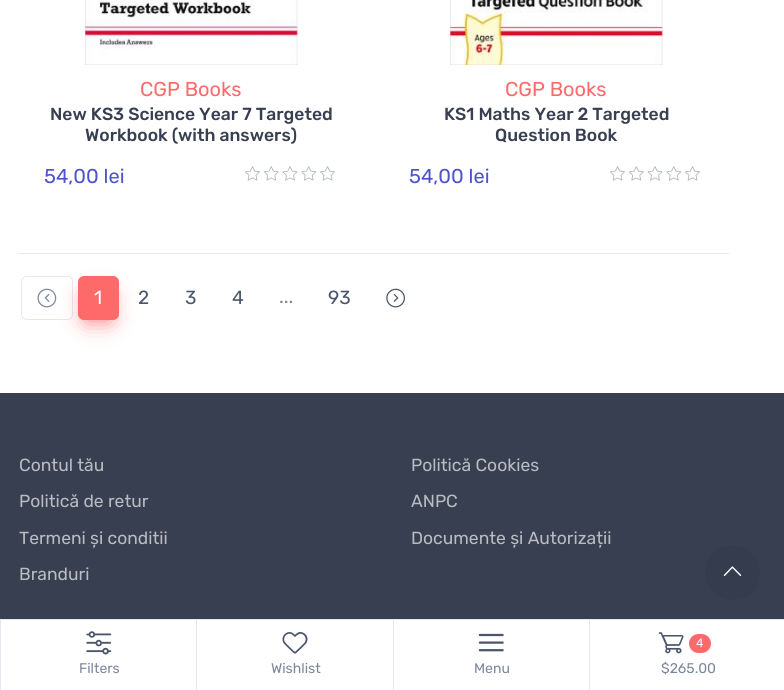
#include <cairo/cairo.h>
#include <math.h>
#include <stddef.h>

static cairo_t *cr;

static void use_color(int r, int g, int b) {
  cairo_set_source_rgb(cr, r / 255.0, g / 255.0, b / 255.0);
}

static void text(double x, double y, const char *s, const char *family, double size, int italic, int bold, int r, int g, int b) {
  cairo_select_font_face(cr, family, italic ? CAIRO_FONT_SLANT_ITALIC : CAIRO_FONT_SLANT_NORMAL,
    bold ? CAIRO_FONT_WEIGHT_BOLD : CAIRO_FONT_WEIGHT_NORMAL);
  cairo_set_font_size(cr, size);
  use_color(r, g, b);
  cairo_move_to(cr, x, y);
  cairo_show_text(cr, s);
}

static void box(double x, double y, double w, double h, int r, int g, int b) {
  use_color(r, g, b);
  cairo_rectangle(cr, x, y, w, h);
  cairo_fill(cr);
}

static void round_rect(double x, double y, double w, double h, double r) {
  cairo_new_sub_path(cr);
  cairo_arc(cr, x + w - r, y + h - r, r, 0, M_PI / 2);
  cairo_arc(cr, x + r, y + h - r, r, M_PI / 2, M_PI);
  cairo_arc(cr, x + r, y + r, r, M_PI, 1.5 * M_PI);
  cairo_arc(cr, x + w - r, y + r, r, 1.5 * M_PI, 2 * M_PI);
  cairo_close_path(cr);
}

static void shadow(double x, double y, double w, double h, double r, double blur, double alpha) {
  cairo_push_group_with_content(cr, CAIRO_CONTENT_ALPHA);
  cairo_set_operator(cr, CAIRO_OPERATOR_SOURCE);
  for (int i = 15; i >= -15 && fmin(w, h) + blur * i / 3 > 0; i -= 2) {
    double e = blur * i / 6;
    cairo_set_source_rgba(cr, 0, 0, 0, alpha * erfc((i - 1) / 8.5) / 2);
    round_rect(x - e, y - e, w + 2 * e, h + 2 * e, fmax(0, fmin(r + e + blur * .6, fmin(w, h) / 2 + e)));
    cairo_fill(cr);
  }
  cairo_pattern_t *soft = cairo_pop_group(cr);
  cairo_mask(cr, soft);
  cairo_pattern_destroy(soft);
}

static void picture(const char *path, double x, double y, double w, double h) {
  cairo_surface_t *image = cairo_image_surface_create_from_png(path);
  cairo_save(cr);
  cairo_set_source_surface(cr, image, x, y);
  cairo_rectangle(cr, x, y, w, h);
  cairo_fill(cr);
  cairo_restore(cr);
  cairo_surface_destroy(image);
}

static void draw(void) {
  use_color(255, 255, 255);
  cairo_paint(cr);
  picture("img_01.png", 85, 0, 213, 65);
  picture("img_02.png", 245, 166, 15, 15);
  picture("img_03.png", 263, 166, 16, 15);
  picture("img_04.png", 282, 166, 16, 15);
  picture("img_05.png", 301, 166, 16, 15);
  picture("img_02.png", 320, 166, 15, 15);
  picture("img_06.png", 450, 0, 213, 65);
  picture("img_02.png", 610, 166, 15, 15);
  picture("img_03.png", 628, 166, 16, 15);
  picture("img_04.png", 647, 166, 16, 15);
  picture("img_05.png", 666, 166, 16, 15);
  picture("img_02.png", 685, 166, 15, 15);
  box(19, 253, 710, 1, 227, 233, 239);
  cairo_new_path(cr);
  cairo_move_to(cr, 27, 276.5);
  cairo_line_to(cr, 68, 276.5);
  cairo_curve_to(cr, 70.5, 276.5, 72.5, 278.5, 72.5, 281);
  cairo_line_to(cr, 72.5, 315);
  cairo_curve_to(cr, 72.5, 317.5, 70.5, 319.5, 68, 319.5);
  cairo_line_to(cr, 27, 319.5);
  cairo_curve_to(cr, 24, 319.5, 21.5, 317, 21.5, 314);
  cairo_line_to(cr, 21.5, 282);
  cairo_curve_to(cr, 21.5, 279, 24, 276.5, 27, 276.5);
  cairo_close_path(cr);
  cairo_set_line_width(cr, 1);
  cairo_stroke(cr);
  picture("img_07.png", 37, 288, 20, 20);
  use_color(254, 105, 106);
  shadow(86, 295, 24, 26, 0, 11, 0.9);
  use_color(254, 105, 106);
  round_rect(78, 276, 41, 44, 6);
  cairo_fill(cr);
  picture("img_08.png", 386, 288, 19, 20);
  box(0, 393, 784, 226, 55, 63, 80);
  use_color(52, 60, 77);
  cairo_arc(cr, 732.5, 572.5, 27.5, 0, 2 * M_PI);
  cairo_fill(cr);
  picture("img_09.png", 723, 566, 19, 10);
  box(0, 619, 784, 1, 227, 233, 239);
  box(0, 620, 1, 70, 227, 233, 239);
  picture("img_10.png", 86, 631, 26, 24);
  box(196, 620, 1, 70, 227, 233, 239);
  picture("img_11.png", 282, 632, 26, 22);
  box(393, 620, 1, 70, 227, 233, 239);
  picture("img_12.png", 478, 633, 26, 19);
  box(589, 620, 1, 70, 227, 233, 239);
  picture("img_13.png", 658, 632, 26, 22);
  use_color(254, 105, 106);
  round_rect(689, 634, 22, 19, 9.5);
  cairo_fill(cr);
  text(140, 96, "CGP Books", "Rubik", 20, 0, 0, 254, 105, 106);
  text(50, 120, "New KS3 Science Year 7 Targeted", "Rubik Medium", 17.5, 0, 0, 55, 63, 80);
  text(85, 141, "Workbook (with answers)", "Rubik Medium", 17.5, 0, 0, 55, 63, 80);
  text(44, 183, "54,00 lei", "Rubik", 20, 0, 0, 78, 84, 200);
  text(505, 96, "CGP Books", "Rubik", 20, 0, 0, 254, 105, 106);
  text(444, 120, "KS1 Maths Year 2 Targeted", "Rubik Medium", 17.5, 0, 0, 55, 63, 80);
  text(495, 141, "Question Book", "Rubik Medium", 17.5, 0, 0, 55, 63, 80);
  text(409, 183, "54,00 lei", "Rubik", 20, 0, 0, 78, 84, 200);
  text(94, 304, "1", "Rubik", 19, 0, 0, 255, 255, 255);
  text(138, 304, "2", "Rubik", 19, 0, 0, 75, 86, 107);
  text(185, 304, "3", "Rubik", 19, 0, 0, 75, 86, 107);
  text(232, 304, "4", "Rubik", 19, 0, 0, 75, 86, 107);
  text(279, 303, "...", "Rubik", 19, 0, 0, 125, 135, 156);
  text(328, 304, "93", "Rubik", 19, 0, 0, 75, 86, 107);
  text(19, 471, "Contul tău", "Rubik", 17.5, 0, 0, 185, 188, 194);
  text(19, 507, "Politică de retur", "Rubik", 17.5, 0, 0, 185, 188, 194);
  text(19, 544, "Termeni și conditii", "Rubik", 17.5, 0, 0, 185, 188, 194);
  text(19, 580, "Branduri", "Rubik", 17.5, 0, 0, 185, 188, 194);
  text(411, 471, "Politică Cookies", "Rubik", 17.5, 0, 0, 185, 188, 194);
  text(411, 507, "ANPC", "Rubik", 17.5, 0, 0, 185, 188, 194);
  text(411, 544, "Documente și Autorizații", "Rubik", 17.5, 0, 0, 185, 188, 194);
  text(79, 673, "Filters", "Rubik", 14, 0, 0, 125, 135, 156);
  text(271, 673, "Wishlist", "Rubik", 14, 0, 0, 125, 135, 156);
  text(474, 673, "Menu", "Rubik", 14, 0, 0, 125, 135, 156);
  text(696, 647, "4", "Rubik", 12, 0, 0, 255, 255, 255);
  text(661, 673, "$265.00", "Rubik", 14, 0, 0, 125, 135, 156);
}

int main(void) {
  cairo_surface_t *surface = cairo_image_surface_create(CAIRO_FORMAT_RGB24, 784, 690);
  cr = cairo_create(surface);
  cairo_font_options_t *options = cairo_font_options_create();
  cairo_font_options_set_hint_metrics(options, CAIRO_HINT_METRICS_OFF);
  cairo_font_options_set_hint_style(options, CAIRO_HINT_STYLE_NONE);
  cairo_set_font_options(cr, options);
  cairo_set_miter_limit(cr, 4);
  draw();
  cairo_surface_write_to_png(surface, "out.png");
  cairo_font_options_destroy(options);
  cairo_destroy(cr);
  cairo_surface_destroy(surface);
  return 0;
}
